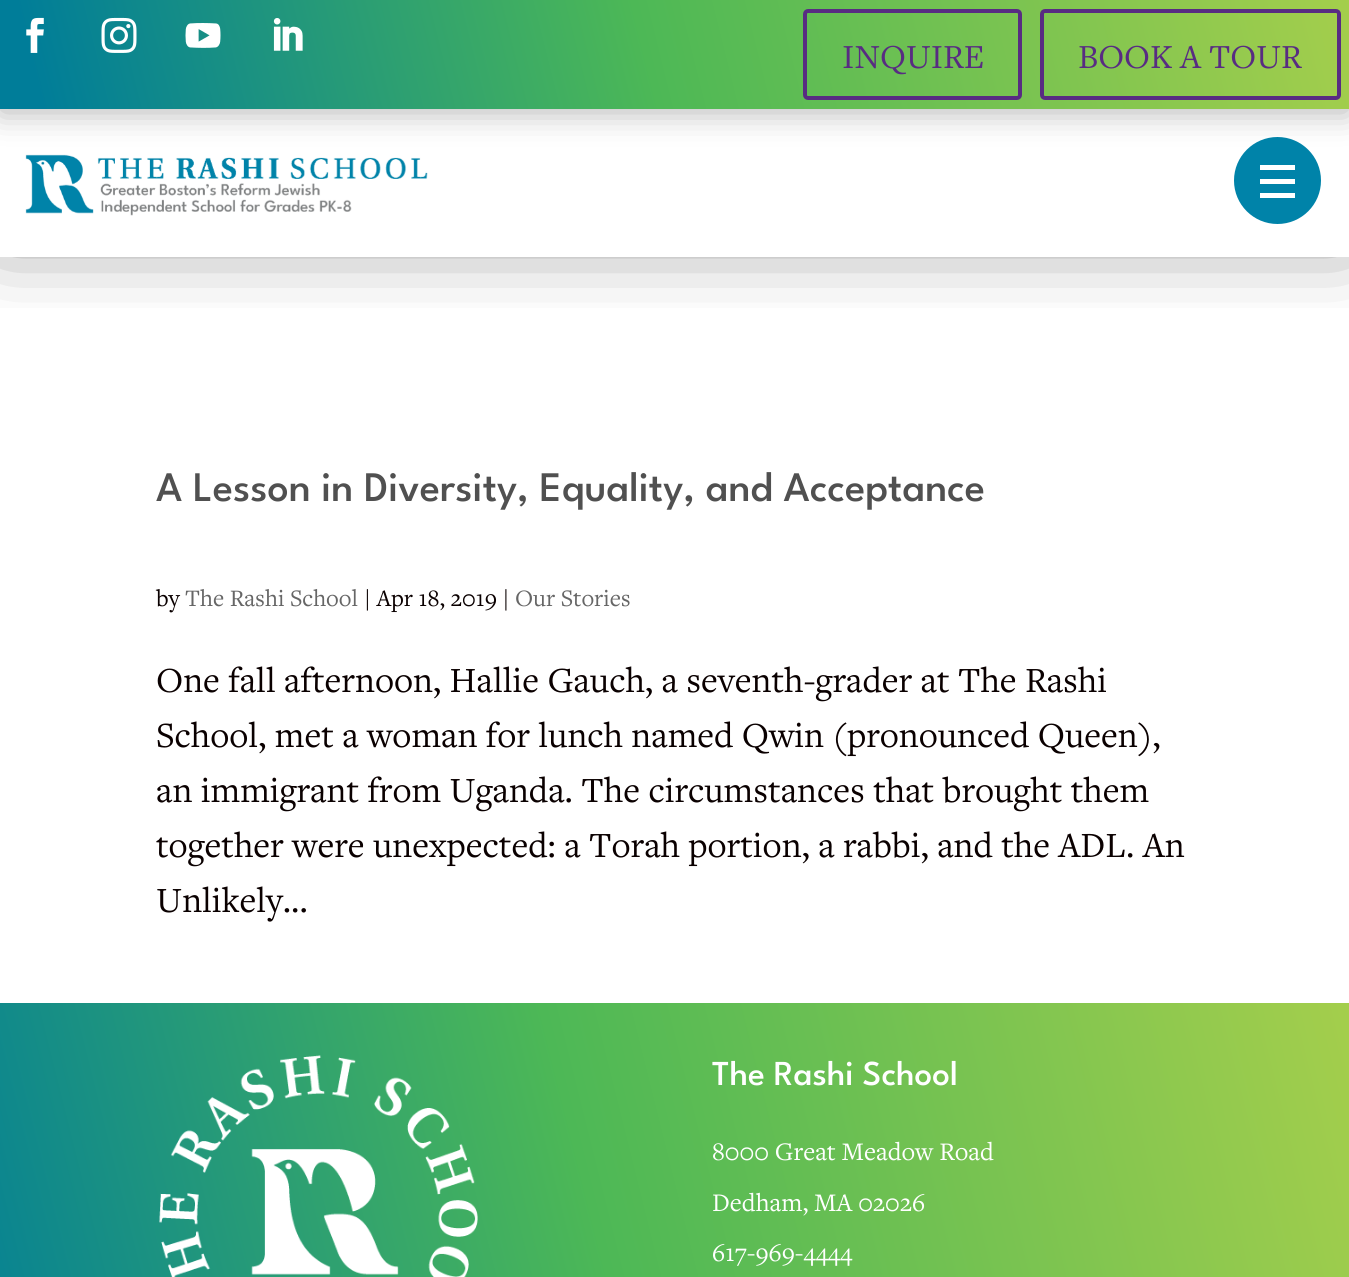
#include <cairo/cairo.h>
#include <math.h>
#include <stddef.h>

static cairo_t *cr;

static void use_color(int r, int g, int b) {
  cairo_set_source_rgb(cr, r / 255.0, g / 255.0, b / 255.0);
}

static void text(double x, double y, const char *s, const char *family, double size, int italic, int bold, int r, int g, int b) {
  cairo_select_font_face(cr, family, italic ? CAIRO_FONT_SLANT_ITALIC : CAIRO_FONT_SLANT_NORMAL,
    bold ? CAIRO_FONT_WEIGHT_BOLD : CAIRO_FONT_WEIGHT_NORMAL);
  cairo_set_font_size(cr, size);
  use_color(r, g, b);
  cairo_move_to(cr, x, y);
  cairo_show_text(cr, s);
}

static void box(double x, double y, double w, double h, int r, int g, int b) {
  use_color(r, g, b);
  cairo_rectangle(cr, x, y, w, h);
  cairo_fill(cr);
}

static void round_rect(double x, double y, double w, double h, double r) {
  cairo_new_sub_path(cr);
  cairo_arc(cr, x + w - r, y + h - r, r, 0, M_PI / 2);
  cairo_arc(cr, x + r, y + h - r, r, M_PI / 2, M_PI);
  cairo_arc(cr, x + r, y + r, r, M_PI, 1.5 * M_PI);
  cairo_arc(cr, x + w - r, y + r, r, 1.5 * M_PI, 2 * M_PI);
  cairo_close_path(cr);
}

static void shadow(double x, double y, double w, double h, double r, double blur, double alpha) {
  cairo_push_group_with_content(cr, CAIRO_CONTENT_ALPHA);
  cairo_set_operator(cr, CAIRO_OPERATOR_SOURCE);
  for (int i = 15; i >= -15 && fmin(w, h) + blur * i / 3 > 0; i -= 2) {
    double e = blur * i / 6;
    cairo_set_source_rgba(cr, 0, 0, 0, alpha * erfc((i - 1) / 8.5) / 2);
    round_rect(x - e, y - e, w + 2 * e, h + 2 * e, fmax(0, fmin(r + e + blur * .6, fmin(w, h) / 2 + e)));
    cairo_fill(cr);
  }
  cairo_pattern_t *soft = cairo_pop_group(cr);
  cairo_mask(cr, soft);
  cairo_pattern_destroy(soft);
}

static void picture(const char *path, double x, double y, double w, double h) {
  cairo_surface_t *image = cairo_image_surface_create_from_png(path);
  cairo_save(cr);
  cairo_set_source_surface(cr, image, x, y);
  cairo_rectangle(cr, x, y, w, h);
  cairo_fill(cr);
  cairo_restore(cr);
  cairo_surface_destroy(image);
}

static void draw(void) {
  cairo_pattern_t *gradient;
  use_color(255, 255, 255);
  cairo_paint(cr);
  cairo_save(cr);
  cairo_rectangle(cr, 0, 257, 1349, 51);
  cairo_clip(cr);
  use_color(0, 0, 0);
  shadow(0, -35, 1349, 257, 0, 44, 0.78);
  cairo_restore(cr);
  picture("img_05.png", 25, 154, 403, 62);
  use_color(0, 0, 0);
  shadow(0, 4, 1349, 108, 0, 16, 0.3);
  gradient = cairo_pattern_create_linear(27, 216, 1323, -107);
  cairo_pattern_add_color_stop_rgba(gradient, 0.03, 0, 0.49, 0.6, 1);
  cairo_pattern_add_color_stop_rgba(gradient, 0.48, 0.302, 0.722, 0.337, 1);
  cairo_pattern_add_color_stop_rgba(gradient, 1, 0.643, 0.808, 0.298, 1);
  cairo_set_source(cr, gradient);
  cairo_pattern_destroy(gradient);
  cairo_rectangle(cr, 0, 0, 1349, 109);
  cairo_fill(cr);
  picture("img_01.png", 26, 17, 18, 36);
  picture("img_02.png", 101, 17, 36, 36);
  picture("img_03.png", 185, 23, 36, 25);
  picture("img_04.png", 273, 18, 30, 33);
  round_rect(805, 11, 215, 87, 3);
  use_color(88, 44, 130);
  cairo_set_line_width(cr, 4);
  cairo_stroke(cr);
  round_rect(1042, 11, 297, 87, 3);
  cairo_stroke(cr);
  use_color(0, 131, 169);
  cairo_arc(cr, 1277.5, 180.5, 43.5, 0, 2 * M_PI);
  cairo_fill(cr);
  box(1260, 179, 35, 5, 255, 255, 255);
  box(1260, 165, 35, 5, 255, 255, 255);
  box(1260, 193, 35, 5, 255, 255, 255);
  gradient = cairo_pattern_create_linear(-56, 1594, 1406, 1229);
  cairo_pattern_add_color_stop_rgba(gradient, 0.03, 0, 0.49, 0.6, 1);
  cairo_pattern_add_color_stop_rgba(gradient, 0.48, 0.302, 0.722, 0.337, 1);
  cairo_pattern_add_color_stop_rgba(gradient, 1, 0.643, 0.808, 0.298, 1);
  cairo_set_source(cr, gradient);
  cairo_pattern_destroy(gradient);
  cairo_rectangle(cr, 0, 1003, 1349, 274);
  cairo_fill(cr);
  picture("img_06.png", 159, 1055, 319, 222);
  text(842, 68, "INQUIRE", "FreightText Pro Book", 35, 0, 0, 88, 44, 130);
  text(1078, 68, "BOOK A TOUR", "FreightText Pro Book", 35, 0, 0, 88, 44, 130);
  text(156, 501, "A Lesson in Diversity, Equality, and Acceptance", "League Spartan Thin", 42, 0, 0, 80, 80, 80);
  text(156, 606, "by", "FreightText Pro Book", 24.5, 0, 0, 10, 0, 0);
  text(185, 606, "The Rashi School", "FreightText Pro Book", 24.5, 0, 0, 102, 102, 102);
  text(364, 606, "| Apr 18, 2019 |", "FreightText Pro Book", 24.5, 0, 0, 10, 0, 0);
  text(515, 606, "Our Stories", "FreightText Pro Book", 24.5, 0, 0, 102, 102, 102);
  text(156, 692, "One fall afternoon, Hallie Gauch, a seventh-grader at The Rashi", "FreightText Pro Book", 36.75, 0, 0, 10, 0, 0);
  text(156, 747, "School, met a woman for lunch named Qwin (pronounced Queen),", "FreightText Pro Book", 36.75, 0, 0, 10, 0, 0);
  text(156, 802, "an immigrant from Uganda. The circumstances that brought them", "FreightText Pro Book", 36.75, 0, 0, 10, 0, 0);
  text(156, 857, "together were unexpected: a Torah portion, a rabbi, and the ADL. An", "FreightText Pro Book", 36.75, 0, 0, 10, 0, 0);
  text(156, 912, "Unlikely...", "FreightText Pro Book", 36.75, 0, 0, 10, 0, 0);
  text(712, 1085, "The Rashi School", "League Spartan Thin", 35, 0, 0, 255, 255, 255);
  text(712, 1160, "8000 Great Meadow Road", "FreightText Pro Book", 26.25, 0, 0, 255, 255, 255);
  text(712, 1211, "Dedham, MA 02026", "FreightText Pro Book", 26.25, 0, 0, 255, 255, 255);
  text(712, 1261, "617-969-4444", "FreightText Pro Book", 26.25, 0, 0, 255, 255, 255);
}

int main(void) {
  cairo_surface_t *surface = cairo_image_surface_create(CAIRO_FORMAT_RGB24, 1349, 1277);
  cr = cairo_create(surface);
  cairo_font_options_t *options = cairo_font_options_create();
  cairo_font_options_set_hint_metrics(options, CAIRO_HINT_METRICS_OFF);
  cairo_font_options_set_hint_style(options, CAIRO_HINT_STYLE_NONE);
  cairo_set_font_options(cr, options);
  cairo_set_miter_limit(cr, 4);
  draw();
  cairo_surface_write_to_png(surface, "out.png");
  cairo_font_options_destroy(options);
  cairo_destroy(cr);
  cairo_surface_destroy(surface);
  return 0;
}
